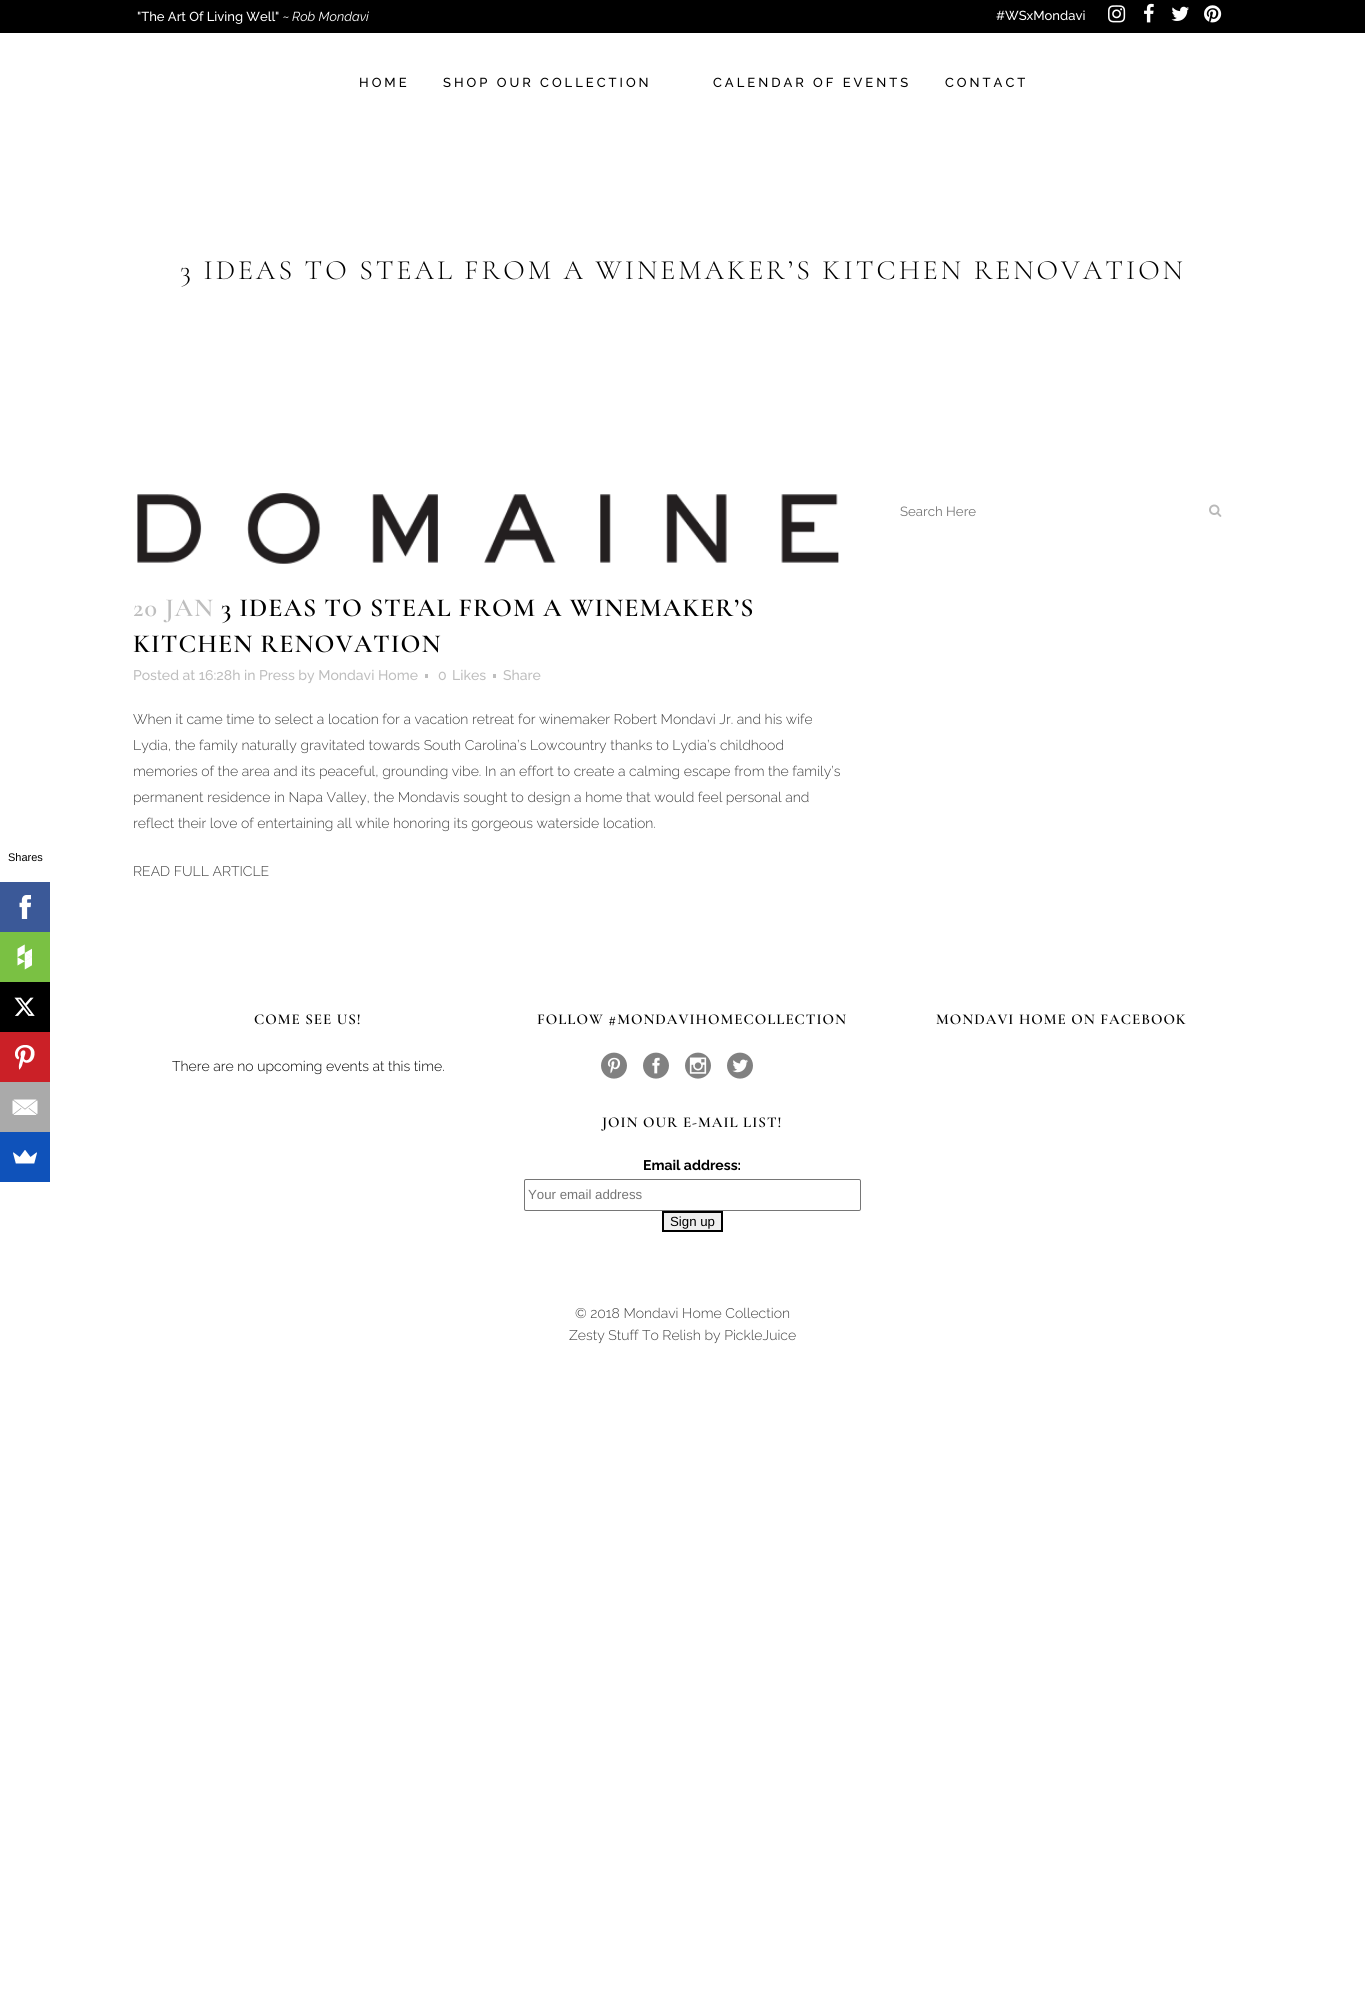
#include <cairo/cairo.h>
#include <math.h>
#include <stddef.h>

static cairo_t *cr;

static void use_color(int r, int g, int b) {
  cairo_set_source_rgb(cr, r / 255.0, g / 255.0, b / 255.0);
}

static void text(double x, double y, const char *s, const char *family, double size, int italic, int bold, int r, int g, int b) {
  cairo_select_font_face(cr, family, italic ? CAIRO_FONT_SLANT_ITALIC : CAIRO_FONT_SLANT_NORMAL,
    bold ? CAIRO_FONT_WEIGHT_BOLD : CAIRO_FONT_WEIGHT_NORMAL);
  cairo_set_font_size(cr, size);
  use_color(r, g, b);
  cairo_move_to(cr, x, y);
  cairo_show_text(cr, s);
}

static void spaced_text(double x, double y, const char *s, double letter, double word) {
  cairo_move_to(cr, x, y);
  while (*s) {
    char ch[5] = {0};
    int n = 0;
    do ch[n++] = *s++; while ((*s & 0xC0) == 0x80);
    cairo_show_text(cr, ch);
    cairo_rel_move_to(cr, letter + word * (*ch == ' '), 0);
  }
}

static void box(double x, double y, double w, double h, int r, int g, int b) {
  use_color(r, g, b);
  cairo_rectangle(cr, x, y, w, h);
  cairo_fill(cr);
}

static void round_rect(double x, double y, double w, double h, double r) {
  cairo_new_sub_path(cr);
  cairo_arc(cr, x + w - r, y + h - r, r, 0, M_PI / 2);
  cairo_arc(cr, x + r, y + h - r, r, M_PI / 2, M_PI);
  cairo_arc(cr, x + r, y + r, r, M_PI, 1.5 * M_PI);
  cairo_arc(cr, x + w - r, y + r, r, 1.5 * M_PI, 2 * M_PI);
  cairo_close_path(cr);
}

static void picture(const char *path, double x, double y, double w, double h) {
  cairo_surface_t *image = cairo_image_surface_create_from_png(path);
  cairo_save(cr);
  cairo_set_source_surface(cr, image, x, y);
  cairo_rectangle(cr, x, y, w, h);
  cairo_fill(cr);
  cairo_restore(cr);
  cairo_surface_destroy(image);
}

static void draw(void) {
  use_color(255, 255, 255);
  cairo_paint(cr);
  box(0, 882, 50, 50, 59, 89, 152);
  picture("img_01.png", 19, 895, 12, 24);
  box(0, 932, 50, 50, 122, 193, 67);
  picture("img_02.png", 17, 944, 15, 26);
  box(0, 982, 50, 50, 0, 0, 0);
  picture("img_03.png", 14, 997, 21, 19);
  box(0, 1032, 50, 50, 203, 32, 39);
  picture("img_04.png", 15, 1045, 20, 25);
  box(0, 1082, 50, 50, 170, 170, 170);
  picture("img_05.png", 12, 1099, 26, 16);
  box(0, 1132, 50, 50, 15, 82, 186);
  picture("img_06.png", 13, 1150, 24, 14);
  box(0, 0, 1365, 33, 0, 0, 0);
  picture("img_07.png", 1108, 5, 18, 18);
  picture("img_08.png", 1144, 3, 10, 20);
  picture("img_09.png", 1171, 6, 18, 15);
  picture("img_10.png", 1204, 5, 18, 18);
  picture("img_11.png", 1209, 504, 13, 13);
  picture("img_12.png", 137, 493, 702, 71);
  box(425, 674, 3, 4, 190, 190, 190);
  box(493, 674, 3, 4, 190, 190, 190);
  picture("img_13.png", 601, 1052, 26, 27);
  picture("img_14.png", 643, 1052, 26, 27);
  picture("img_15.png", 685, 1052, 26, 27);
  picture("img_16.png", 727, 1052, 26, 27);
  round_rect(524.5, 1179.5, 336, 31, 1.5);
  use_color(118, 118, 118);
  cairo_set_line_width(cr, 1);
  cairo_stroke(cr);
  use_color(239, 239, 239);
  cairo_rectangle(cr, 663, 1212, 59, 19);
  cairo_fill_preserve(cr);
  use_color(0, 0, 0);
  cairo_set_line_width(cr, 2);
  cairo_stroke(cr);
  text(8, 861, "Shares", "Liberation Sans", 11, 0, 0, 0, 0, 0);
  text(137, 21, "\"The Art Of Living Well\" ~", "Raleway Medium", 13, 0, 0, 255, 255, 255);
  text(292, 21, "Rob Mondavi", "Raleway", 13, 1, 0, 255, 255, 255);
  text(996, 20, "#WSxMondavi", "Raleway Medium", 13, 0, 0, 255, 255, 255);
  use_color(0, 0, 0);
  spaced_text(359, 87, "HOME", 3, 0);
  spaced_text(443, 87, "SHOP OUR COLLECTION", 3, 0);
  spaced_text(713, 87, "CALENDAR OF EVENTS", 3, 0);
  spaced_text(945, 87, "CONTACT", 3, 0);
  cairo_select_font_face(cr, "Cormorant Garamond Light", CAIRO_FONT_SLANT_NORMAL, CAIRO_FONT_WEIGHT_NORMAL);
  cairo_set_font_size(cr, 28);
  spaced_text(180, 279, "3 IDEAS TO STEAL FROM A WINEMAKER’S KITCHEN RENOVATION", 3, 0);
  text(900, 516, "Search Here", "Raleway", 13.25, 0, 0, 117, 117, 117);
  cairo_select_font_face(cr, "Cormorant Garamond SemiBold", CAIRO_FONT_SLANT_NORMAL, CAIRO_FONT_WEIGHT_NORMAL);
  cairo_set_font_size(cr, 26);
  use_color(190, 190, 190);
  spaced_text(133, 616, "20 JAN", 1, 0);
  use_color(0, 0, 0);
  spaced_text(221, 616, "3 IDEAS TO STEAL FROM A WINEMAKER’S", 1, 0);
  spaced_text(133, 652, "KITCHEN RENOVATION", 1, 0);
  text(133, 680, "Posted at 16:28h in Press by Mondavi Home", "Raleway Medium", 14, 0, 0, 190, 190, 190);
  text(438, 680, "0", "Raleway Medium", 14, 0, 0, 190, 190, 190);
  text(452, 680, "Likes", "Raleway Medium", 14, 0, 0, 190, 190, 190);
  text(503, 680, "Share", "Raleway Medium", 14, 0, 0, 190, 190, 190);
  text(133, 724, "When it came time to select a location for a vacation retreat for winemaker Robert Mondavi Jr. and his wife", "Raleway Light", 14, 0, 0, 63, 63, 63);
  text(133, 750, "Lydia, the family naturally gravitated towards South Carolina’s Lowcountry thanks to Lydia’s childhood", "Raleway Light", 14, 0, 0, 63, 63, 63);
  text(133, 776, "memories of the area and its peaceful, grounding vibe. In an effort to create a calming escape from the family’s", "Raleway Light", 14, 0, 0, 63, 63, 63);
  text(133, 802, "permanent residence in Napa Valley, the Mondavis sought to design a home that would feel personal and", "Raleway Light", 14, 0, 0, 63, 63, 63);
  text(133, 828, "reflect their love of entertaining all while honoring its gorgeous waterside location.", "Raleway Light", 14, 0, 0, 63, 63, 63);
  text(133, 876, "READ FULL ARTICLE", "Raleway Light", 14, 0, 0, 63, 63, 63);
  cairo_select_font_face(cr, "Cormorant Garamond SemiBold", CAIRO_FONT_SLANT_NORMAL, CAIRO_FONT_WEIGHT_NORMAL);
  cairo_set_font_size(cr, 15);
  use_color(0, 0, 0);
  spaced_text(254, 1024, "COME SEE US!", 1, 0);
  text(172, 1071, "There are no upcoming events at this time.", "Raleway Light", 14, 0, 0, 0, 0, 0);
  cairo_select_font_face(cr, "Cormorant Garamond SemiBold", CAIRO_FONT_SLANT_NORMAL, CAIRO_FONT_WEIGHT_NORMAL);
  cairo_set_font_size(cr, 15);
  spaced_text(537, 1024, "FOLLOW #MONDAVIHOMECOLLECTION", 1, 0);
  spaced_text(602, 1127, "JOIN OUR E-MAIL LIST!", 1, 0);
  text(643, 1170, "Email address:", "Raleway", 14, 0, 1, 0, 0, 0);
  text(528, 1199, "Your email address", "Liberation Sans", 13.25, 0, 0, 117, 117, 117);
  text(670, 1226, "Sign up", "Liberation Sans", 13.25, 0, 0, 0, 0, 0);
  cairo_select_font_face(cr, "Cormorant Garamond SemiBold", CAIRO_FONT_SLANT_NORMAL, CAIRO_FONT_WEIGHT_NORMAL);
  cairo_set_font_size(cr, 15);
  spaced_text(936, 1024, "MONDAVI HOME ON FACEBOOK", 1, 0);
  text(575, 1318, "© 2018 Mondavi Home Collection", "Raleway Light", 14, 0, 0, 63, 63, 63);
  text(569, 1340, "Zesty Stuff To Relish by PickleJuice", "Raleway Light", 14, 0, 0, 63, 63, 63);
}

int main(void) {
  cairo_surface_t *surface = cairo_image_surface_create(CAIRO_FORMAT_RGB24, 1365, 2014);
  cr = cairo_create(surface);
  cairo_font_options_t *options = cairo_font_options_create();
  cairo_font_options_set_hint_metrics(options, CAIRO_HINT_METRICS_OFF);
  cairo_font_options_set_hint_style(options, CAIRO_HINT_STYLE_NONE);
  cairo_set_font_options(cr, options);
  cairo_set_miter_limit(cr, 4);
  draw();
  cairo_surface_write_to_png(surface, "out.png");
  cairo_font_options_destroy(options);
  cairo_destroy(cr);
  cairo_surface_destroy(surface);
  return 0;
}
